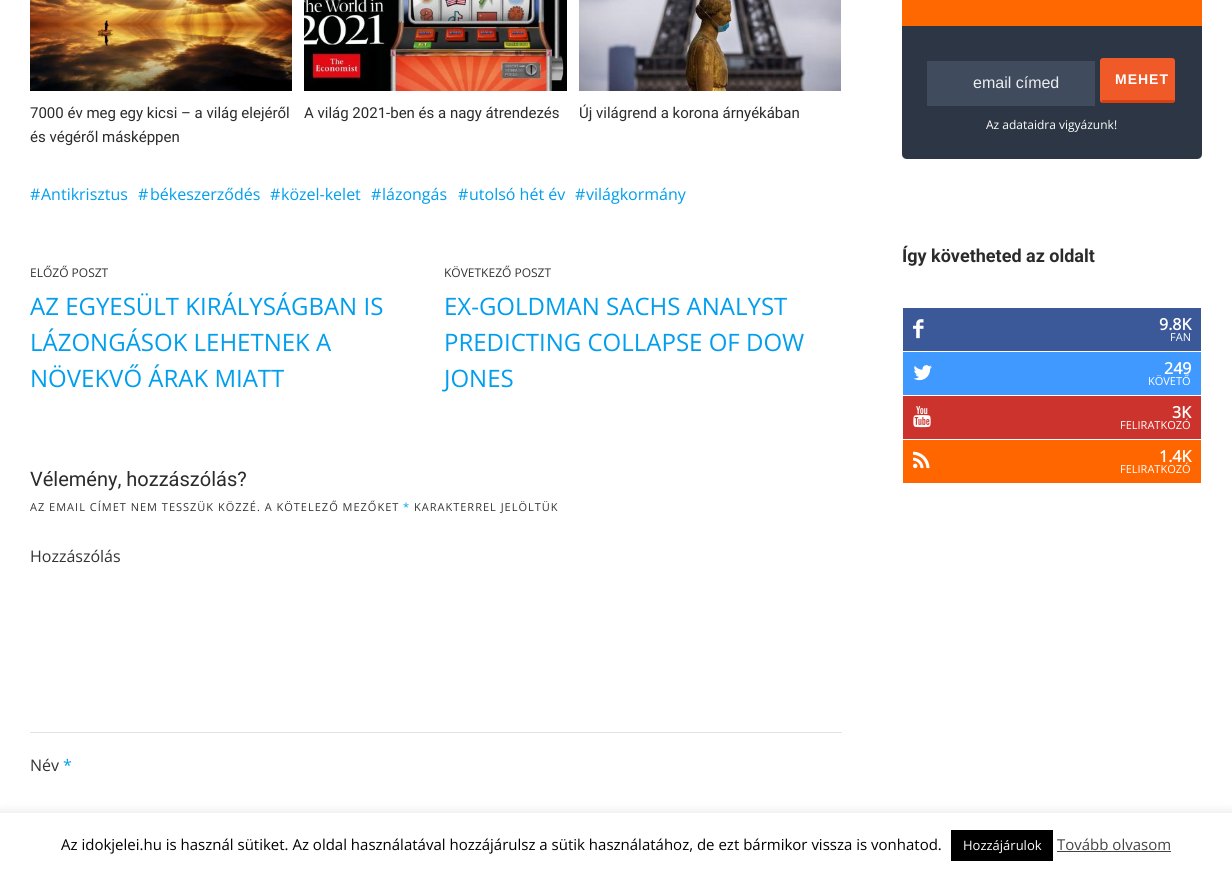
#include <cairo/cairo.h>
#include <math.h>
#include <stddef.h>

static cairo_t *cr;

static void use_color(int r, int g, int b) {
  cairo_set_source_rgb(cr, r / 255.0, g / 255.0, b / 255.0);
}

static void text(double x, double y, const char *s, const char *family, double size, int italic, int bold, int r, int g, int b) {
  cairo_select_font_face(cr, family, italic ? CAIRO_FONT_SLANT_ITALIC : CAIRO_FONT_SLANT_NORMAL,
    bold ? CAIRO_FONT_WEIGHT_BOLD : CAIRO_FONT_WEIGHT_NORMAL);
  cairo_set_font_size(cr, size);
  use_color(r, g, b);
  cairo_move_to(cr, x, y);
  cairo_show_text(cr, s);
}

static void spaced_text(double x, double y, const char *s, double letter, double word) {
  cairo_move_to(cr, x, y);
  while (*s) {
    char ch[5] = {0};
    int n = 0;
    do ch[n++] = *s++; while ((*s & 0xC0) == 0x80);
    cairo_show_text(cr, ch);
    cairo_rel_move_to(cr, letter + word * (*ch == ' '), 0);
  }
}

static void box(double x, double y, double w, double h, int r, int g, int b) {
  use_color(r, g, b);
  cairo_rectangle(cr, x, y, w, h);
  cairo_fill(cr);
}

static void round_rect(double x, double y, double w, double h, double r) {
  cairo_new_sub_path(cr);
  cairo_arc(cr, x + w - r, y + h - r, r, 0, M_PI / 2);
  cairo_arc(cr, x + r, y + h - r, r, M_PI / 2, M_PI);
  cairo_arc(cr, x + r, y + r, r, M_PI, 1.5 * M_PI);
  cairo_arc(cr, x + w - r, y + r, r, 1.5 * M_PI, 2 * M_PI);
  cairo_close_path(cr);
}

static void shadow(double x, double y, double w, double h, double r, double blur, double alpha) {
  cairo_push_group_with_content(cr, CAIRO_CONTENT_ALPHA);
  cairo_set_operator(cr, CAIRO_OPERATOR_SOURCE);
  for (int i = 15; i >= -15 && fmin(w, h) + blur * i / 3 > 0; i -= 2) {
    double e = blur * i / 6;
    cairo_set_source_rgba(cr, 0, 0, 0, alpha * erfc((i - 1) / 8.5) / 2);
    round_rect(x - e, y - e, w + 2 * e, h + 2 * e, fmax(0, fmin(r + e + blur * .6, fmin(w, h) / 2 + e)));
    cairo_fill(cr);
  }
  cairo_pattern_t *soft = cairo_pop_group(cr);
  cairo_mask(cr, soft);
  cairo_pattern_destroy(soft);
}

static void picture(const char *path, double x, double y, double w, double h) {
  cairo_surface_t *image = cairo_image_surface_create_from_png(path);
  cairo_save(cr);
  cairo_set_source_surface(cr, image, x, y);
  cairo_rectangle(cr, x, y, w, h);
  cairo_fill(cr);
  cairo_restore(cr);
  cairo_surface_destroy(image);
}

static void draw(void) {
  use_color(255, 255, 255);
  cairo_paint(cr);
  picture("img_01.png", 30, 0, 262, 91);
  picture("img_02.png", 304, 0, 263, 91);
  picture("img_03.png", 579, 0, 262, 91);
  box(30, 732, 812, 1, 226, 226, 226);
  box(902, 0, 300, 26, 255, 103, 0);
  use_color(44, 54, 68);
  cairo_new_path(cr);
  cairo_move_to(cr, 902, 26);
  cairo_line_to(cr, 1202, 26);
  cairo_line_to(cr, 1202, 154);
  cairo_curve_to(cr, 1202, 157, 1200, 159, 1197, 159);
  cairo_line_to(cr, 907, 159);
  cairo_curve_to(cr, 904, 159, 902, 157, 902, 154);
  cairo_close_path(cr);
  cairo_fill(cr);
  box(927, 61, 168, 45, 64, 76, 93);
  use_color(240, 90, 40);
  round_rect(1100, 58, 75, 45, 3);
  cairo_fill(cr);
  box(1102, 100, 72, 3, 214, 65, 15);
  box(903, 308, 298, 43, 59, 89, 152);
  picture("img_04.png", 913, 319, 11, 20);
  box(903, 352, 298, 43, 64, 153, 255);
  picture("img_05.png", 913, 365, 19, 16);
  box(903, 396, 298, 43, 205, 51, 45);
  picture("img_06.png", 913, 406, 18, 22);
  box(903, 440, 298, 43, 255, 102, 0);
  picture("img_07.png", 913, 451, 17, 18);
  use_color(172, 171, 171);
  shadow(0, 812, 1232, 60, 0, 5, 0.3);
  box(0, 813, 1232, 60, 255, 255, 255);
  box(951, 830, 102, 31, 0, 0, 0);
  box(1057, 851, 114, 1, 68, 68, 68);
  text(30, 118, "7000 év meg egy kicsi – a világ elejéről", "Roboto", 15, 0, 0, 43, 43, 43);
  text(30, 142, "és végéről másképpen", "Roboto", 15, 0, 0, 43, 43, 43);
  text(304, 118, "A világ 2021-ben és a nagy átrendezés", "Roboto", 15, 0, 0, 43, 43, 43);
  text(579, 118, "Új világrend a korona árnyékában", "Roboto", 15, 0, 0, 43, 43, 43);
  text(30, 200, "#", "Open Sans", 16, 0, 0, 0, 158, 237);
  text(41, 200, "Antikrisztus", "Open Sans", 16, 0, 0, 0, 158, 237);
  text(138, 200, "#", "Open Sans", 16, 0, 0, 0, 158, 237);
  text(150, 200, "békeszerződés", "Open Sans", 16, 0, 0, 0, 158, 237);
  text(270, 200, "#", "Open Sans", 16, 0, 0, 0, 158, 237);
  text(281, 200, "közel-kelet", "Open Sans", 16, 0, 0, 0, 158, 237);
  text(371, 200, "#", "Open Sans", 16, 0, 0, 0, 158, 237);
  text(382, 200, "lázongás", "Open Sans", 16, 0, 0, 0, 158, 237);
  text(458, 200, "#", "Open Sans", 16, 0, 0, 0, 158, 237);
  text(469, 200, "utolsó hét év", "Open Sans", 16, 0, 0, 0, 158, 237);
  text(575, 200, "#", "Open Sans", 16, 0, 0, 0, 158, 237);
  text(586, 200, "világkormány", "Open Sans", 16, 0, 0, 0, 158, 237);
  text(30, 277, "ELŐZŐ POSZT", "Open Sans", 12, 0, 0, 51, 51, 51);
  text(30, 315, "AZ EGYESÜLT KIRÁLYSÁGBAN IS", "Open Sans", 24, 0, 0, 0, 158, 237);
  text(30, 351, "LÁZONGÁSOK LEHETNEK A", "Open Sans", 24, 0, 0, 0, 158, 237);
  text(30, 387, "NÖVEKVŐ ÁRAK MIATT", "Open Sans", 24, 0, 0, 0, 158, 237);
  text(444, 277, "KÖVETKEZŐ POSZT", "Open Sans", 12, 0, 0, 51, 51, 51);
  text(444, 315, "EX-GOLDMAN SACHS ANALYST", "Open Sans", 24, 0, 0, 0, 158, 237);
  text(444, 351, "PREDICTING COLLAPSE OF DOW", "Open Sans", 24, 0, 0, 0, 158, 237);
  text(444, 387, "JONES", "Open Sans", 24, 0, 0, 0, 158, 237);
  text(30, 486, "Vélemény, hozzászólás?", "Roboto", 20, 0, 0, 43, 43, 43);
  cairo_select_font_face(cr, "Open Sans", CAIRO_FONT_SLANT_NORMAL, CAIRO_FONT_WEIGHT_NORMAL);
  cairo_set_font_size(cr, 11);
  use_color(51, 51, 51);
  spaced_text(30, 511, "AZ EMAIL CÍMET NEM TESSZÜK KÖZZÉ. A KÖTELEZŐ MEZŐKET", 1, 0);
  use_color(0, 158, 237);
  spaced_text(403, 511, "*", 1, 0);
  use_color(51, 51, 51);
  spaced_text(414, 511, "KARAKTERREL JELÖLTÜK", 1, 0);
  text(30, 562, "Hozzászólás", "Open Sans", 16, 0, 0, 51, 51, 51);
  text(30, 771, "Név", "Open Sans", 16, 0, 0, 51, 51, 51);
  text(63, 771, "*", "Open Sans", 16, 0, 0, 0, 158, 237);
  text(973, 88, "email címed", "Liberation Sans", 16, 0, 0, 236, 237, 239);
  cairo_select_font_face(cr, "Liberation Sans", CAIRO_FONT_SLANT_NORMAL, CAIRO_FONT_WEIGHT_BOLD);
  cairo_set_font_size(cr, 14);
  use_color(255, 255, 255);
  spaced_text(1115, 84, "MEHET", 1, 0);
  text(986, 129, "Az adataidra vigyázunk!", "Open Sans", 12, 0, 0, 255, 255, 255);
  text(902, 262, "Így követheted az oldalt", "Roboto", 18, 0, 1, 43, 43, 43);
  text(1159, 330, "9.8K", "Open Sans", 16, 0, 1, 255, 255, 255);
  text(1170, 341, "FAN", "Open Sans", 11, 0, 0, 255, 255, 255);
  text(1164, 374, "249", "Open Sans", 16, 0, 1, 255, 255, 255);
  text(1148, 385, "KÖVETŐ", "Open Sans", 11, 0, 0, 255, 255, 255);
  text(1172, 418, "3K", "Open Sans", 16, 0, 1, 255, 255, 255);
  text(1120, 429, "FELIRATKOZÓ", "Open Sans", 11, 0, 0, 255, 255, 255);
  text(1159, 462, "1.4K", "Open Sans", 16, 0, 1, 255, 255, 255);
  text(1120, 473, "FELIRATKOZÓ", "Open Sans", 11, 0, 0, 255, 255, 255);
  text(61, 850, "Az idokjelei.hu is használ sütiket. Az oldal használatával hozzájárulsz a sütik használatához, de ezt bármikor vissza is vonhatod.", "Open Sans", 15, 0, 0, 0, 0, 0);
  text(963, 850, "Hozzájárulok", "Open Sans", 13, 0, 0, 255, 255, 255);
  text(1057, 850, "Tovább olvasom", "Open Sans", 15, 0, 0, 68, 68, 68);
}

int main(void) {
  cairo_surface_t *surface = cairo_image_surface_create(CAIRO_FORMAT_RGB24, 1232, 873);
  cr = cairo_create(surface);
  cairo_font_options_t *options = cairo_font_options_create();
  cairo_font_options_set_hint_metrics(options, CAIRO_HINT_METRICS_OFF);
  cairo_font_options_set_hint_style(options, CAIRO_HINT_STYLE_NONE);
  cairo_set_font_options(cr, options);
  cairo_set_miter_limit(cr, 4);
  draw();
  cairo_surface_write_to_png(surface, "out.png");
  cairo_font_options_destroy(options);
  cairo_destroy(cr);
  cairo_surface_destroy(surface);
  return 0;
}
